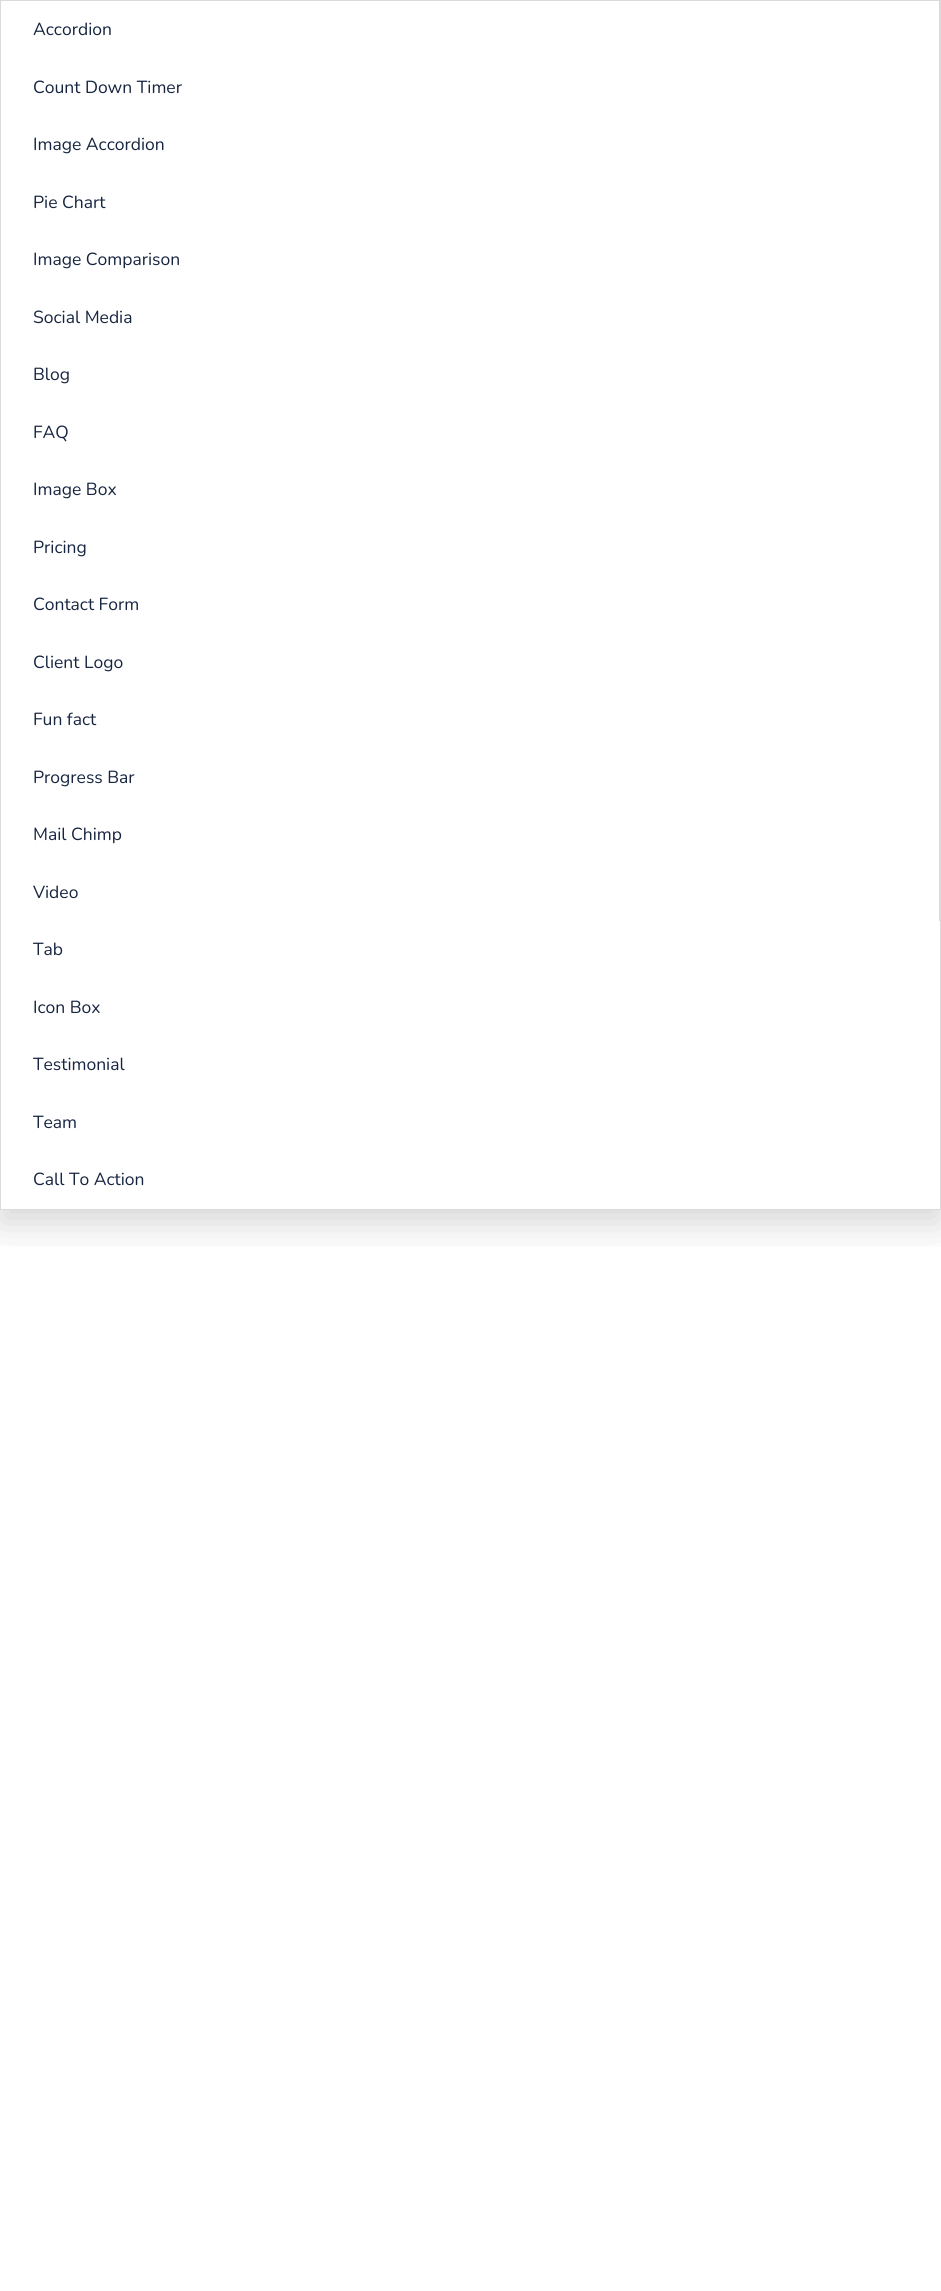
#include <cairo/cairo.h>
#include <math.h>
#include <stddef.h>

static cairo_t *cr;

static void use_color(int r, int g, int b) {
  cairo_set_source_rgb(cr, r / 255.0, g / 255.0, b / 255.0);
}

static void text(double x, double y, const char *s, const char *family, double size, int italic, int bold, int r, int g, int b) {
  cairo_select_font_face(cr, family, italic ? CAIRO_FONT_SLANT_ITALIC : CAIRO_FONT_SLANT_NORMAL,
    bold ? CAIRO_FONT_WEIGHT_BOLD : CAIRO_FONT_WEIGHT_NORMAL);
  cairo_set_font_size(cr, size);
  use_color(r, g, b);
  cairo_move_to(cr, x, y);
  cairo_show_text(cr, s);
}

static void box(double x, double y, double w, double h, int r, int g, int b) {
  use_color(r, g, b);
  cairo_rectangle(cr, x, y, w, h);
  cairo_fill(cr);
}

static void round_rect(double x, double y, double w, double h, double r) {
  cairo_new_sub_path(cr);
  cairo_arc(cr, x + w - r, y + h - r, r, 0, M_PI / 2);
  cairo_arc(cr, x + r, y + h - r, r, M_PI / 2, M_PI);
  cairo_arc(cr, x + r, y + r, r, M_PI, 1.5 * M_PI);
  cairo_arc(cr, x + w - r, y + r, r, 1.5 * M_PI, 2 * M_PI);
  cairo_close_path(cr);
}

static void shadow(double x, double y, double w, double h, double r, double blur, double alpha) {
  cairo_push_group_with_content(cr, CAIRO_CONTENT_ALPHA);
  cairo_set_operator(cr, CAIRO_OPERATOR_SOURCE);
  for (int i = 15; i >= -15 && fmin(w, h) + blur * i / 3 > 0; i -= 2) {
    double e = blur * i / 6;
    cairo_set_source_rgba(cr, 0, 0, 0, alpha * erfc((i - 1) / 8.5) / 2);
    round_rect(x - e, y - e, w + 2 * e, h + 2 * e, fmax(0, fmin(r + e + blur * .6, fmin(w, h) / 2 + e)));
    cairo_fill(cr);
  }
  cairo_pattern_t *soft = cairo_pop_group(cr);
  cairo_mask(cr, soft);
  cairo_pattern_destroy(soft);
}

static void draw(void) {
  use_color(255, 255, 255);
  cairo_paint(cr);
  cairo_save(cr);
  cairo_rectangle(cr, 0, 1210, 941, 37);
  cairo_clip(cr);
  use_color(45, 45, 45);
  shadow(0, 13, 941, 1210, 0, 19, 0.2);
  cairo_restore(cr);
  cairo_rectangle(cr, 0.5, 0.5, 940, 1209);
  use_color(218, 218, 218);
  cairo_set_line_width(cr, 1);
  cairo_stroke(cr);
  box(939, 1, 1, 920, 218, 218, 218);
  text(33, 35, "Accordion", "Nunito", 17.5, 0, 0, 23, 37, 65);
  text(33, 93, "Count Down Timer", "Nunito", 17.5, 0, 0, 23, 37, 65);
  text(33, 150, "Image Accordion", "Nunito", 17.5, 0, 0, 23, 37, 65);
  text(33, 208, "Pie Chart", "Nunito", 17.5, 0, 0, 23, 37, 65);
  text(33, 265, "Image Comparison", "Nunito", 17.5, 0, 0, 23, 37, 65);
  text(33, 323, "Social Media", "Nunito", 17.5, 0, 0, 23, 37, 65);
  text(33, 380, "Blog", "Nunito", 17.5, 0, 0, 23, 37, 65);
  text(33, 438, "FAQ", "Nunito", 17.5, 0, 0, 23, 37, 65);
  text(33, 495, "Image Box", "Nunito", 17.5, 0, 0, 23, 37, 65);
  text(33, 553, "Pricing", "Nunito", 17.5, 0, 0, 23, 37, 65);
  text(33, 610, "Contact Form", "Nunito", 17.5, 0, 0, 23, 37, 65);
  text(33, 668, "Client Logo", "Nunito", 17.5, 0, 0, 23, 37, 65);
  text(33, 725, "Fun fact", "Nunito", 17.5, 0, 0, 23, 37, 65);
  text(33, 783, "Progress Bar", "Nunito", 17.5, 0, 0, 23, 37, 65);
  text(33, 840, "Mail Chimp", "Nunito", 17.5, 0, 0, 23, 37, 65);
  text(33, 898, "Video", "Nunito", 17.5, 0, 0, 23, 37, 65);
  text(33, 955, "Tab", "Nunito", 17.5, 0, 0, 23, 37, 65);
  text(33, 1013, "Icon Box", "Nunito", 17.5, 0, 0, 23, 37, 65);
  text(33, 1070, "Testimonial", "Nunito", 17.5, 0, 0, 23, 37, 65);
  text(33, 1128, "Team", "Nunito", 17.5, 0, 0, 23, 37, 65);
  text(33, 1185, "Call To Action", "Nunito", 17.5, 0, 0, 23, 37, 65);
}

int main(void) {
  cairo_surface_t *surface = cairo_image_surface_create(CAIRO_FORMAT_RGB24, 941, 2291);
  cr = cairo_create(surface);
  cairo_font_options_t *options = cairo_font_options_create();
  cairo_font_options_set_hint_metrics(options, CAIRO_HINT_METRICS_OFF);
  cairo_font_options_set_hint_style(options, CAIRO_HINT_STYLE_NONE);
  cairo_set_font_options(cr, options);
  cairo_set_miter_limit(cr, 4);
  draw();
  cairo_surface_write_to_png(surface, "out.png");
  cairo_font_options_destroy(options);
  cairo_destroy(cr);
  cairo_surface_destroy(surface);
  return 0;
}
